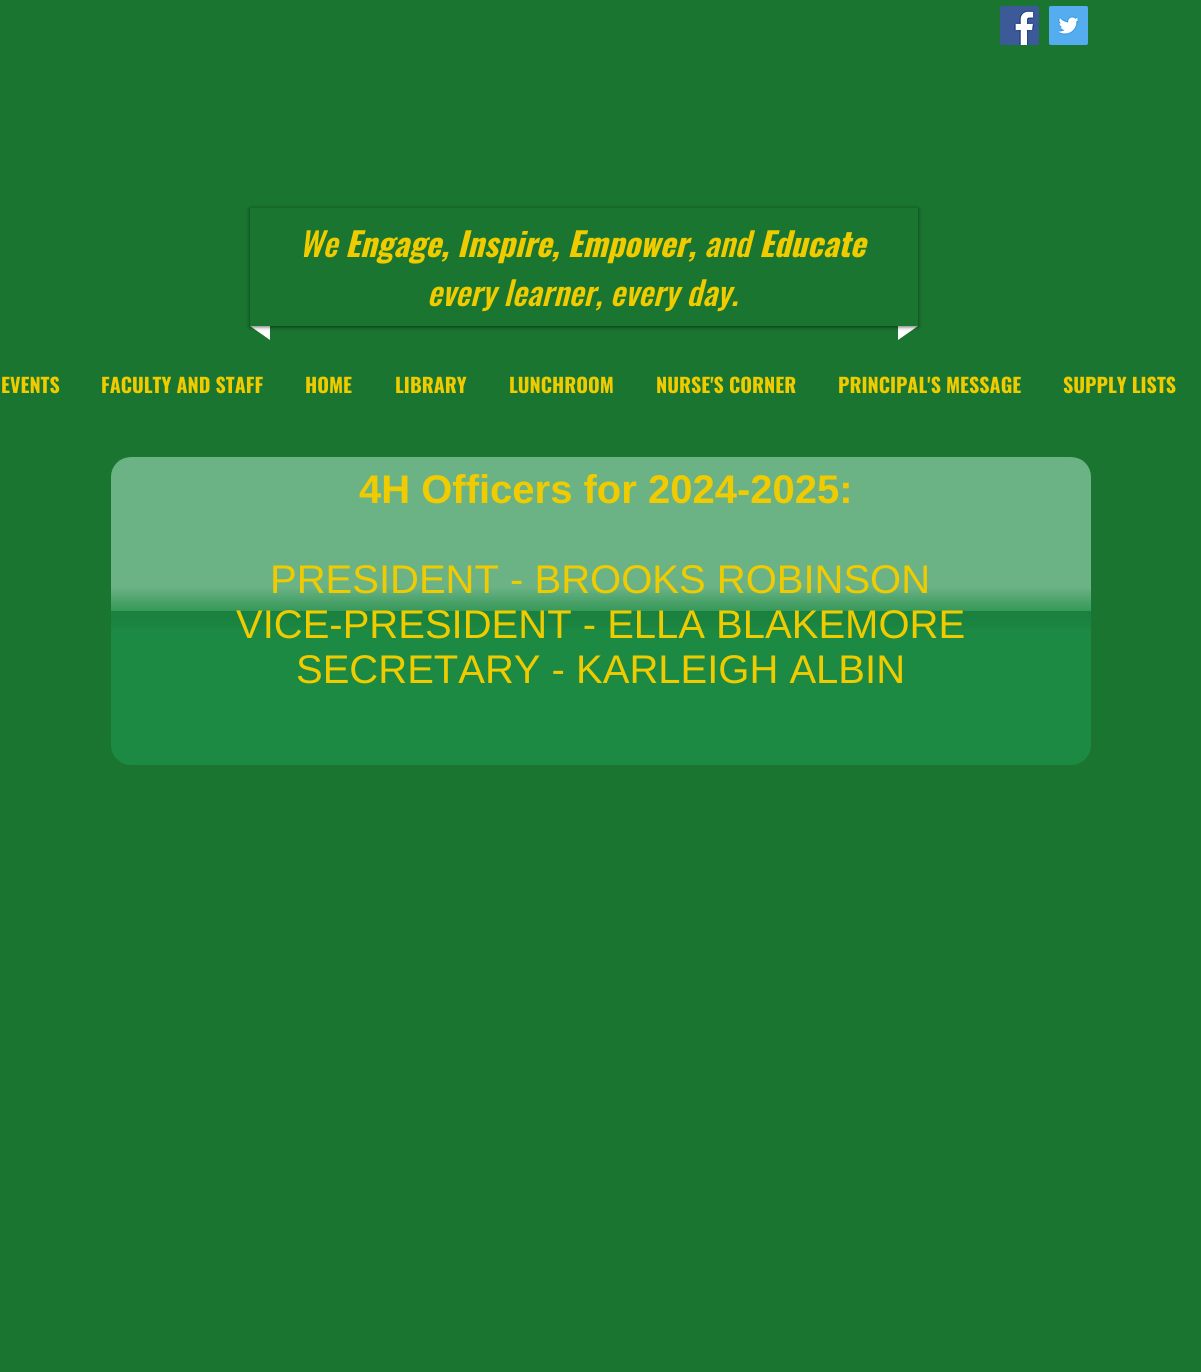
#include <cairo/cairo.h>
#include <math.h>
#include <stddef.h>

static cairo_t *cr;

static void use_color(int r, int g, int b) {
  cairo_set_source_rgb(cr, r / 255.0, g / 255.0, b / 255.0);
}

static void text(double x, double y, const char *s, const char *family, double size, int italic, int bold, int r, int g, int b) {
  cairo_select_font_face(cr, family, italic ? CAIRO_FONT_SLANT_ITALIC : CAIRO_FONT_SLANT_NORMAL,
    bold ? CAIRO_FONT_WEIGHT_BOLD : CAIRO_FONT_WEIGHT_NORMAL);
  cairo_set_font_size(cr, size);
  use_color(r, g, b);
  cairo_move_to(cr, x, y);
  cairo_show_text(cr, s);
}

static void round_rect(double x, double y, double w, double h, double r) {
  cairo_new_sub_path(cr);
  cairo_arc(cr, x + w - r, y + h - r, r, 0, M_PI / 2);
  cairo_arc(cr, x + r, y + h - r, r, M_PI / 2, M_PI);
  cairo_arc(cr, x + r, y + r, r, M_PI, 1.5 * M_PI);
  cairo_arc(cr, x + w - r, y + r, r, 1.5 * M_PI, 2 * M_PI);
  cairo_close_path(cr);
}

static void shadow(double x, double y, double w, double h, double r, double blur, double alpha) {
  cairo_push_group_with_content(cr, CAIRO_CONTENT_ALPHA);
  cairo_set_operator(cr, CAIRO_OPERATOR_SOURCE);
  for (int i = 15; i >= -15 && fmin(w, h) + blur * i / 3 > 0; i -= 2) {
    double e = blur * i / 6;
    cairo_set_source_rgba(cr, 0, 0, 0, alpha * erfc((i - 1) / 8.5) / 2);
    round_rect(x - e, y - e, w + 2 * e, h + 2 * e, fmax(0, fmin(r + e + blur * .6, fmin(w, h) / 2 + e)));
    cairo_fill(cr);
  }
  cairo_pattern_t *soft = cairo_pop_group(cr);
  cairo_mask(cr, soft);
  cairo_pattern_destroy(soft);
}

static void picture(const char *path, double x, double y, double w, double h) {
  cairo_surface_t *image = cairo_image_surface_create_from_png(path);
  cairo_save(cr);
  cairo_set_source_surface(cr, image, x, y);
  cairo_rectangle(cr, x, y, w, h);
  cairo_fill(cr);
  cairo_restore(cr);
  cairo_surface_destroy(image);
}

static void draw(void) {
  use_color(26, 117, 48);
  cairo_paint(cr);
  picture("img_01.png", 1000, 6, 39, 39);
  picture("img_02.png", 1049, 6, 39, 39);
  use_color(255, 255, 255);
  cairo_new_path(cr);
  cairo_move_to(cr, 270, 326);
  cairo_line_to(cr, 270, 340);
  cairo_line_to(cr, 250, 326);
  cairo_close_path(cr);
  cairo_fill(cr);
  cairo_new_path(cr);
  cairo_move_to(cr, 898, 340);
  cairo_line_to(cr, 898, 326);
  cairo_line_to(cr, 918, 326);
  cairo_close_path(cr);
  cairo_fill(cr);
  cairo_save(cr);
  cairo_set_fill_rule(cr, CAIRO_FILL_RULE_EVEN_ODD);
  cairo_new_path(cr);
  cairo_move_to(cr, 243, 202);
  cairo_line_to(cr, 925, 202);
  cairo_line_to(cr, 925, 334);
  cairo_line_to(cr, 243, 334);
  cairo_close_path(cr);
  cairo_move_to(cr, 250, 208);
  cairo_line_to(cr, 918, 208);
  cairo_line_to(cr, 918, 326);
  cairo_line_to(cr, 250, 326);
  cairo_close_path(cr);
  cairo_clip(cr);
  use_color(0, 0, 0);
  shadow(250, 209, 668, 118, 0, 2, 0.6);
  cairo_restore(cr);
  use_color(28, 138, 67);
  round_rect(111, 457, 980, 308, 20);
  cairo_fill(cr);
  picture("img_03.png", 111, 457, 980, 172);
  text(299, 257, "We", "Oswald Medium", 33, 1, 0, 240, 203, 0);
  text(345, 257, "Engage, Inspire, Empower,", "Oswald", 33, 1, 1, 240, 203, 0);
  text(704, 257, "and", "Oswald Medium", 33, 1, 0, 240, 203, 0);
  text(759, 257, "Educate", "Oswald", 33, 1, 1, 240, 203, 0);
  text(427, 306, "every learner, every day.", "Oswald Medium", 33, 1, 0, 240, 203, 0);
  text(1, 393, "EVENTS", "Oswald", 20, 0, 1, 240, 203, 0);
  text(101, 393, "FACULTY AND STAFF", "Oswald", 20, 0, 1, 240, 203, 0);
  text(305, 393, "HOME", "Oswald", 20, 0, 1, 240, 203, 0);
  text(395, 393, "LIBRARY", "Oswald", 20, 0, 1, 240, 203, 0);
  text(509, 393, "LUNCHROOM", "Oswald", 20, 0, 1, 240, 203, 0);
  text(656, 393, "NURSE'S CORNER", "Oswald", 20, 0, 1, 240, 203, 0);
  text(838, 393, "PRINCIPAL'S MESSAGE", "Oswald", 20, 0, 1, 240, 203, 0);
  text(1063, 393, "SUPPLY LISTS", "Oswald", 20, 0, 1, 240, 203, 0);
  text(359, 503, "4H Officers for 2024-2025:", "Liberation Sans", 40, 0, 1, 240, 203, 0);
  text(270, 593, "PRESIDENT - BROOKS ROBINSON", "Liberation Sans", 40, 0, 0, 240, 203, 0);
  text(236, 638, "VICE-PRESIDENT - ELLA BLAKEMORE", "Liberation Sans", 40, 0, 0, 240, 203, 0);
  text(296, 683, "SECRETARY - KARLEIGH ALBIN", "Liberation Sans", 40, 0, 0, 240, 203, 0);
}

int main(void) {
  cairo_surface_t *surface = cairo_image_surface_create(CAIRO_FORMAT_RGB24, 1201, 1372);
  cr = cairo_create(surface);
  cairo_font_options_t *options = cairo_font_options_create();
  cairo_font_options_set_hint_metrics(options, CAIRO_HINT_METRICS_OFF);
  cairo_font_options_set_hint_style(options, CAIRO_HINT_STYLE_NONE);
  cairo_set_font_options(cr, options);
  cairo_set_miter_limit(cr, 4);
  draw();
  cairo_surface_write_to_png(surface, "out.png");
  cairo_font_options_destroy(options);
  cairo_destroy(cr);
  cairo_surface_destroy(surface);
  return 0;
}
